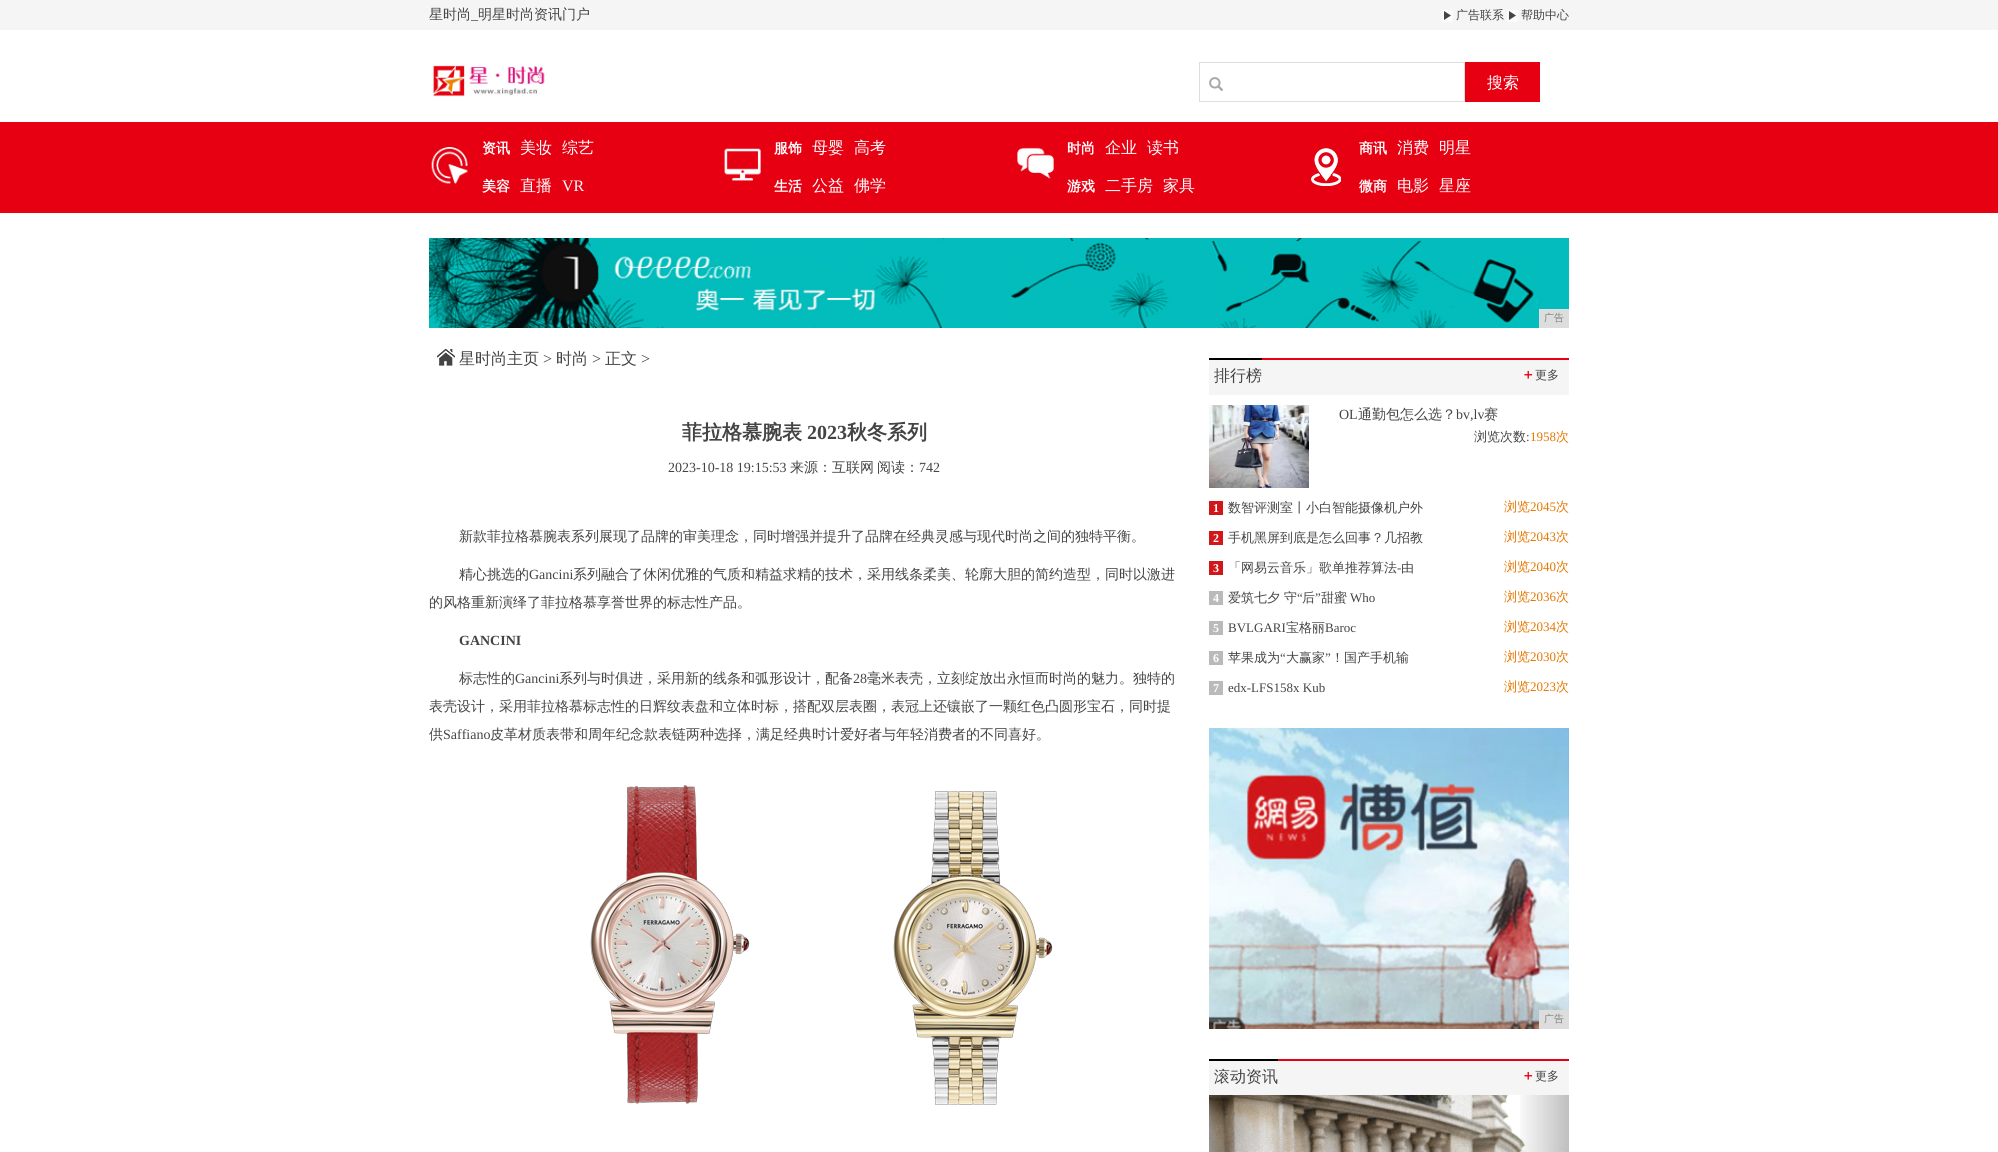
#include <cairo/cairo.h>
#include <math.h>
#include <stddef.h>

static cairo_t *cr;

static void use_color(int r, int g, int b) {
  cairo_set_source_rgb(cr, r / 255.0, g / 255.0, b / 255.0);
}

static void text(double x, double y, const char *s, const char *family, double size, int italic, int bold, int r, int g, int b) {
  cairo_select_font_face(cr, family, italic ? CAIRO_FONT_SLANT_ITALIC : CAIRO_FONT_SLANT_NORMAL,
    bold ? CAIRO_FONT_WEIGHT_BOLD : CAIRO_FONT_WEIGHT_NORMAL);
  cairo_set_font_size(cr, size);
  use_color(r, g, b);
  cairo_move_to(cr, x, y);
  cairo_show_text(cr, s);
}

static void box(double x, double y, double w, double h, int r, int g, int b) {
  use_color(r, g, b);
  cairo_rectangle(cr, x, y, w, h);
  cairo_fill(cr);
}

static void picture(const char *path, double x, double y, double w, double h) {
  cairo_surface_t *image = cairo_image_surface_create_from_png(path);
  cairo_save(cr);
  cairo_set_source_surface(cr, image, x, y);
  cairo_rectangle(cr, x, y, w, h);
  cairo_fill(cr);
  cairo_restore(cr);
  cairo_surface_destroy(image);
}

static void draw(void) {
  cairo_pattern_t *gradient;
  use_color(255, 255, 255);
  cairo_paint(cr);
  box(0, 0, 1998, 30, 245, 245, 245);
  picture("img_01.png", 1442, 10, 11, 12);
  picture("img_01.png", 1507, 10, 11, 12);
  picture("img_02.png", 432, 64, 115, 33);
  cairo_rectangle(cr, 1199.5, 62.5, 265, 39);
  use_color(221, 221, 221);
  cairo_set_line_width(cr, 1);
  cairo_stroke(cr);
  box(1465, 62, 75, 40, 230, 0, 18);
  picture("img_03.png", 1209, 77, 14, 14);
  box(0, 122, 1998, 91, 230, 0, 18);
  picture("img_04.png", 431, 147, 37, 37);
  picture("img_05.png", 724, 148, 37, 33);
  picture("img_06.png", 1017, 147, 37, 32);
  picture("img_07.png", 1311, 148, 30, 38);
  picture("img_08.png", 429, 238, 1140, 90);
  box(1539, 309, 30, 19, 221, 221, 221);
  picture("img_09.png", 437, 349, 18, 17);
  picture("img_10.png", 590, 785, 463, 320);
  box(1209, 360, 360, 35, 245, 245, 245);
  box(1262, 358, 307, 2, 230, 0, 18);
  box(1209, 358, 53, 2, 0, 0, 0);
  picture("img_11.png", 1209, 405, 100, 83);
  box(1209, 501, 14, 14, 209, 23, 26);
  box(1209, 531, 14, 14, 209, 23, 26);
  box(1209, 561, 14, 14, 209, 23, 26);
  box(1209, 591, 14, 14, 186, 186, 186);
  box(1209, 621, 14, 14, 186, 186, 186);
  box(1209, 651, 14, 14, 186, 186, 186);
  box(1209, 681, 14, 14, 186, 186, 186);
  picture("img_12.png", 1209, 728, 360, 301);
  box(1539, 1010, 30, 19, 221, 221, 221);
  box(1209, 1061, 360, 34, 245, 245, 245);
  box(1278, 1059, 291, 2, 230, 0, 18);
  box(1209, 1059, 69, 2, 0, 0, 0);
  picture("img_13.png", 1209, 1095, 356, 57);
  gradient = cairo_pattern_create_linear(1515, 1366, 1569, 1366);
  cairo_pattern_add_color_stop_rgba(gradient, 0, 0, 0, 0, 0);
  cairo_pattern_add_color_stop_rgba(gradient, 1, 0, 0, 0, 0.25);
  cairo_set_source(cr, gradient);
  cairo_pattern_destroy(gradient);
  cairo_rectangle(cr, 1520, 1095, 49, 57);
  cairo_fill(cr);
  text(429, 19, "星时尚", "WenQuanYi Zen Hei Medium", 14, 0, 0, 68, 68, 68);
  text(471, 19, "_", "Liberation Serif", 14, 0, 0, 68, 68, 68);
  text(478, 19, "明星时尚资讯门户", "WenQuanYi Zen Hei Medium", 14, 0, 0, 68, 68, 68);
  text(1456, 19, "广告联系", "WenQuanYi Zen Hei Medium", 12, 0, 0, 68, 68, 68);
  text(1521, 19, "帮助中心", "WenQuanYi Zen Hei Medium", 12, 0, 0, 68, 68, 68);
  text(1487, 88, "搜索", "WenQuanYi Zen Hei Medium", 16, 0, 0, 255, 255, 255);
  text(482, 153, "资讯", "WenQuanYi Zen Hei", 14, 0, 1, 255, 255, 255);
  text(520, 153, "美妆", "WenQuanYi Zen Hei Medium", 16, 0, 0, 255, 255, 255);
  text(562, 153, "综艺", "WenQuanYi Zen Hei Medium", 16, 0, 0, 255, 255, 255);
  text(482, 191, "美容", "WenQuanYi Zen Hei", 14, 0, 1, 255, 255, 255);
  text(520, 191, "直播", "WenQuanYi Zen Hei Medium", 16, 0, 0, 255, 255, 255);
  text(562, 191, "VR", "Liberation Serif", 16, 0, 0, 255, 255, 255);
  text(774, 153, "服饰", "WenQuanYi Zen Hei", 14, 0, 1, 255, 255, 255);
  text(812, 153, "母婴", "WenQuanYi Zen Hei Medium", 16, 0, 0, 255, 255, 255);
  text(854, 153, "高考", "WenQuanYi Zen Hei Medium", 16, 0, 0, 255, 255, 255);
  text(774, 191, "生活", "WenQuanYi Zen Hei", 14, 0, 1, 255, 255, 255);
  text(812, 191, "公益", "WenQuanYi Zen Hei Medium", 16, 0, 0, 255, 255, 255);
  text(854, 191, "佛学", "WenQuanYi Zen Hei Medium", 16, 0, 0, 255, 255, 255);
  text(1067, 153, "时尚", "WenQuanYi Zen Hei", 14, 0, 1, 255, 255, 255);
  text(1105, 153, "企业", "WenQuanYi Zen Hei Medium", 16, 0, 0, 255, 255, 255);
  text(1147, 153, "读书", "WenQuanYi Zen Hei Medium", 16, 0, 0, 255, 255, 255);
  text(1067, 191, "游戏", "WenQuanYi Zen Hei", 14, 0, 1, 255, 255, 255);
  text(1105, 191, "二手房", "WenQuanYi Zen Hei Medium", 16, 0, 0, 255, 255, 255);
  text(1163, 191, "家具", "WenQuanYi Zen Hei Medium", 16, 0, 0, 255, 255, 255);
  text(1359, 153, "商讯", "WenQuanYi Zen Hei", 14, 0, 1, 255, 255, 255);
  text(1397, 153, "消费", "WenQuanYi Zen Hei Medium", 16, 0, 0, 255, 255, 255);
  text(1439, 153, "明星", "WenQuanYi Zen Hei Medium", 16, 0, 0, 255, 255, 255);
  text(1359, 191, "微商", "WenQuanYi Zen Hei", 14, 0, 1, 255, 255, 255);
  text(1397, 191, "电影", "WenQuanYi Zen Hei Medium", 16, 0, 0, 255, 255, 255);
  text(1439, 191, "星座", "WenQuanYi Zen Hei Medium", 16, 0, 0, 255, 255, 255);
  text(1544, 321, "广告", "WenQuanYi Zen Hei Medium", 10, 0, 0, 128, 128, 128);
  text(459, 364, "星时尚主页", "WenQuanYi Zen Hei Medium", 16, 0, 0, 68, 68, 68);
  text(543, 364, ">", "Liberation Serif", 16, 0, 0, 68, 68, 68);
  text(556, 364, "时尚", "WenQuanYi Zen Hei Medium", 16, 0, 0, 68, 68, 68);
  text(592, 364, ">", "Liberation Serif", 16, 0, 0, 68, 68, 68);
  text(605, 364, "正文", "WenQuanYi Zen Hei Medium", 16, 0, 0, 68, 68, 68);
  text(641, 364, ">", "Liberation Serif", 16, 0, 0, 68, 68, 68);
  text(682, 439, "菲拉格慕腕表", "WenQuanYi Zen Hei", 20, 0, 1, 68, 68, 68);
  text(807, 439, "2023", "Liberation Serif", 20, 0, 1, 68, 68, 68);
  text(847, 439, "秋冬系列", "WenQuanYi Zen Hei", 20, 0, 1, 68, 68, 68);
  text(668, 472, "2023-10-18 19:15:53", "Liberation Serif", 14, 0, 0, 68, 68, 68);
  text(790, 472, "来源：互联网", "WenQuanYi Zen Hei Medium", 14, 0, 0, 68, 68, 68);
  text(877, 472, "阅读：", "WenQuanYi Zen Hei Medium", 14, 0, 0, 68, 68, 68);
  text(919, 472, "742", "Liberation Serif", 14, 0, 0, 68, 68, 68);
  text(459, 541, "新款菲拉格慕腕表系列展现了品牌的审美理念，同时增强并提升了品牌在经典灵感与现代时尚之间的独特平衡。", "WenQuanYi Zen Hei Medium", 14, 0, 0, 68, 68, 68);
  text(459, 579, "精心挑选的", "WenQuanYi Zen Hei Medium", 14, 0, 0, 68, 68, 68);
  text(529, 579, "Gancini", "Liberation Serif", 14, 0, 0, 68, 68, 68);
  text(573, 579, "系列融合了休闲优雅的气质和精益求精的技术，采用线条柔美、轮廓大胆的简约造型，同时以激进", "WenQuanYi Zen Hei Medium", 14, 0, 0, 68, 68, 68);
  text(429, 607, "的风格重新演绎了菲拉格慕享誉世界的标志性产品。", "WenQuanYi Zen Hei Medium", 14, 0, 0, 68, 68, 68);
  text(459, 645, "GANCINI", "Liberation Serif", 14, 0, 1, 68, 68, 68);
  text(459, 683, "标志性的", "WenQuanYi Zen Hei Medium", 14, 0, 0, 68, 68, 68);
  text(515, 683, "Gancini", "Liberation Serif", 14, 0, 0, 68, 68, 68);
  text(559, 683, "系列与时俱进，采用新的线条和弧形设计，配备", "WenQuanYi Zen Hei Medium", 14, 0, 0, 68, 68, 68);
  text(853, 683, "28", "Liberation Serif", 14, 0, 0, 68, 68, 68);
  text(867, 683, "毫米表壳，立刻绽放出永恒而时尚的魅力。独特的", "WenQuanYi Zen Hei Medium", 14, 0, 0, 68, 68, 68);
  text(429, 711, "表壳设计，采用菲拉格慕标志性的日辉纹表盘和立体时标，搭配双层表圈，表冠上还镶嵌了一颗红色凸圆形宝石，同时提", "WenQuanYi Zen Hei Medium", 14, 0, 0, 68, 68, 68);
  text(429, 739, "供", "WenQuanYi Zen Hei Medium", 14, 0, 0, 68, 68, 68);
  text(443, 739, "Saffiano", "Liberation Serif", 14, 0, 0, 68, 68, 68);
  text(490, 739, "皮革材质表带和周年纪念款表链两种选择，满足经典时计爱好者与年轻消费者的不同喜好。", "WenQuanYi Zen Hei Medium", 14, 0, 0, 68, 68, 68);
  text(1214, 381, "排行榜", "WenQuanYi Zen Hei Medium", 16, 0, 0, 68, 68, 68);
  text(1521, 379, "＋", "WenQuanYi Zen Hei", 14, 0, 1, 230, 0, 18);
  text(1535, 379, "更多", "WenQuanYi Zen Hei Medium", 12, 0, 0, 68, 68, 68);
  text(1339, 419, "OL", "Liberation Serif", 14, 0, 0, 68, 68, 68);
  text(1358, 419, "通勤包怎么选？", "WenQuanYi Zen Hei Medium", 14, 0, 0, 68, 68, 68);
  text(1456, 419, "bv,lv", "Liberation Serif", 14, 0, 0, 68, 68, 68);
  text(1484, 419, "赛", "WenQuanYi Zen Hei Medium", 14, 0, 0, 68, 68, 68);
  text(1474, 441, "浏览次数", "WenQuanYi Zen Hei Medium", 13, 0, 0, 68, 68, 68);
  text(1526, 441, ":", "Liberation Serif", 13, 0, 0, 68, 68, 68);
  text(1530, 441, "1958", "Liberation Serif", 13, 0, 0, 230, 119, 0);
  text(1556, 441, "次", "WenQuanYi Zen Hei Medium", 13, 0, 0, 230, 119, 0);
  text(1213, 512, "1", "Liberation Serif", 12, 0, 1, 255, 255, 255);
  text(1228, 512, "数智评测室丨小白智能摄像机户外", "WenQuanYi Zen Hei Medium", 13, 0, 0, 68, 68, 68);
  text(1504, 511, "浏览", "WenQuanYi Zen Hei Medium", 13, 0, 0, 230, 119, 0);
  text(1530, 511, "2045", "Liberation Serif", 13, 0, 0, 230, 119, 0);
  text(1556, 511, "次", "WenQuanYi Zen Hei Medium", 13, 0, 0, 230, 119, 0);
  text(1213, 542, "2", "Liberation Serif", 12, 0, 1, 255, 255, 255);
  text(1228, 542, "手机黑屏到底是怎么回事？几招教", "WenQuanYi Zen Hei Medium", 13, 0, 0, 68, 68, 68);
  text(1504, 541, "浏览", "WenQuanYi Zen Hei Medium", 13, 0, 0, 230, 119, 0);
  text(1530, 541, "2043", "Liberation Serif", 13, 0, 0, 230, 119, 0);
  text(1556, 541, "次", "WenQuanYi Zen Hei Medium", 13, 0, 0, 230, 119, 0);
  text(1213, 572, "3", "Liberation Serif", 12, 0, 1, 255, 255, 255);
  text(1228, 572, "「网易云音乐」歌单推荐算法", "WenQuanYi Zen Hei Medium", 13, 0, 0, 68, 68, 68);
  text(1397, 572, "-", "Liberation Serif", 13, 0, 0, 68, 68, 68);
  text(1401, 572, "由", "WenQuanYi Zen Hei Medium", 13, 0, 0, 68, 68, 68);
  text(1504, 571, "浏览", "WenQuanYi Zen Hei Medium", 13, 0, 0, 230, 119, 0);
  text(1530, 571, "2040", "Liberation Serif", 13, 0, 0, 230, 119, 0);
  text(1556, 571, "次", "WenQuanYi Zen Hei Medium", 13, 0, 0, 230, 119, 0);
  text(1213, 602, "4", "Liberation Serif", 12, 0, 1, 255, 255, 255);
  text(1228, 602, "爱筑七夕 守", "WenQuanYi Zen Hei Medium", 13, 0, 0, 68, 68, 68);
  text(1297, 602, "“", "Liberation Serif", 13, 0, 0, 68, 68, 68);
  text(1302, 602, "后", "WenQuanYi Zen Hei Medium", 13, 0, 0, 68, 68, 68);
  text(1315, 602, "”", "Liberation Serif", 13, 0, 0, 68, 68, 68);
  text(1321, 602, "甜蜜", "WenQuanYi Zen Hei Medium", 13, 0, 0, 68, 68, 68);
  text(1350, 602, "Who", "Liberation Serif", 13, 0, 0, 68, 68, 68);
  text(1504, 601, "浏览", "WenQuanYi Zen Hei Medium", 13, 0, 0, 230, 119, 0);
  text(1530, 601, "2036", "Liberation Serif", 13, 0, 0, 230, 119, 0);
  text(1556, 601, "次", "WenQuanYi Zen Hei Medium", 13, 0, 0, 230, 119, 0);
  text(1213, 632, "5", "Liberation Serif", 12, 0, 1, 255, 255, 255);
  text(1228, 632, "BVLGARI", "Liberation Serif", 13, 0, 0, 68, 68, 68);
  text(1286, 632, "宝格丽", "WenQuanYi Zen Hei Medium", 13, 0, 0, 68, 68, 68);
  text(1325, 632, "Baroc", "Liberation Serif", 13, 0, 0, 68, 68, 68);
  text(1504, 631, "浏览", "WenQuanYi Zen Hei Medium", 13, 0, 0, 230, 119, 0);
  text(1530, 631, "2034", "Liberation Serif", 13, 0, 0, 230, 119, 0);
  text(1556, 631, "次", "WenQuanYi Zen Hei Medium", 13, 0, 0, 230, 119, 0);
  text(1213, 662, "6", "Liberation Serif", 12, 0, 1, 255, 255, 255);
  text(1228, 662, "苹果成为", "WenQuanYi Zen Hei Medium", 13, 0, 0, 68, 68, 68);
  text(1280, 662, "“", "Liberation Serif", 13, 0, 0, 68, 68, 68);
  text(1286, 662, "大赢家", "WenQuanYi Zen Hei Medium", 13, 0, 0, 68, 68, 68);
  text(1325, 662, "”", "Liberation Serif", 13, 0, 0, 68, 68, 68);
  text(1331, 662, "！国产手机输", "WenQuanYi Zen Hei Medium", 13, 0, 0, 68, 68, 68);
  text(1504, 661, "浏览", "WenQuanYi Zen Hei Medium", 13, 0, 0, 230, 119, 0);
  text(1530, 661, "2030", "Liberation Serif", 13, 0, 0, 230, 119, 0);
  text(1556, 661, "次", "WenQuanYi Zen Hei Medium", 13, 0, 0, 230, 119, 0);
  text(1213, 692, "7", "Liberation Serif", 12, 0, 1, 255, 255, 255);
  text(1228, 692, "edx-LFS158x Kub", "Liberation Serif", 13, 0, 0, 68, 68, 68);
  text(1504, 691, "浏览", "WenQuanYi Zen Hei Medium", 13, 0, 0, 230, 119, 0);
  text(1530, 691, "2023", "Liberation Serif", 13, 0, 0, 230, 119, 0);
  text(1556, 691, "次", "WenQuanYi Zen Hei Medium", 13, 0, 0, 230, 119, 0);
  text(1544, 1022, "广告", "WenQuanYi Zen Hei Medium", 10, 0, 0, 128, 128, 128);
  text(1214, 1082, "滚动资讯", "WenQuanYi Zen Hei Medium", 16, 0, 0, 68, 68, 68);
  text(1521, 1080, "＋", "WenQuanYi Zen Hei", 14, 0, 1, 230, 0, 18);
  text(1535, 1080, "更多", "WenQuanYi Zen Hei Medium", 12, 0, 0, 68, 68, 68);
}

int main(void) {
  cairo_surface_t *surface = cairo_image_surface_create(CAIRO_FORMAT_RGB24, 1998, 1152);
  cr = cairo_create(surface);
  cairo_font_options_t *options = cairo_font_options_create();
  cairo_font_options_set_hint_metrics(options, CAIRO_HINT_METRICS_OFF);
  cairo_font_options_set_hint_style(options, CAIRO_HINT_STYLE_NONE);
  cairo_set_font_options(cr, options);
  cairo_set_miter_limit(cr, 4);
  draw();
  cairo_surface_write_to_png(surface, "out.png");
  cairo_font_options_destroy(options);
  cairo_destroy(cr);
  cairo_surface_destroy(surface);
  return 0;
}
